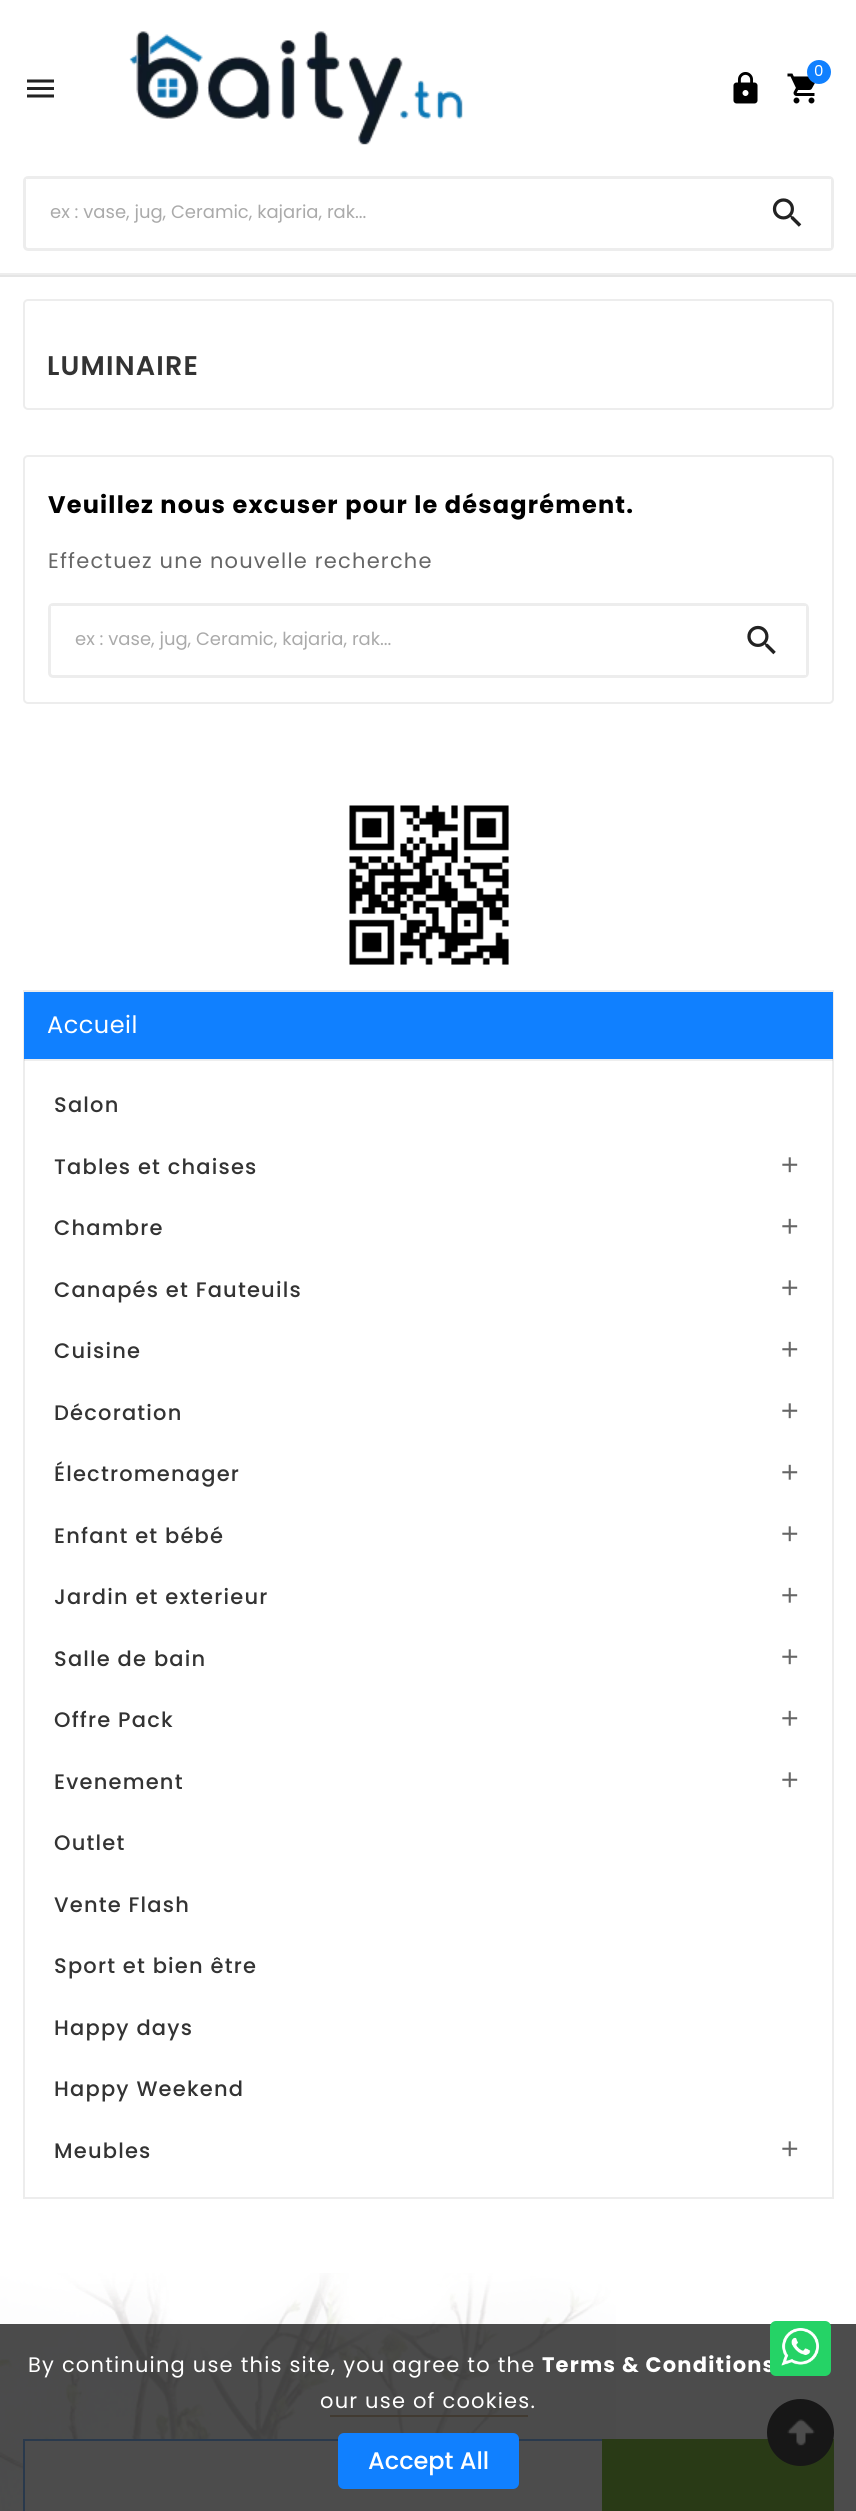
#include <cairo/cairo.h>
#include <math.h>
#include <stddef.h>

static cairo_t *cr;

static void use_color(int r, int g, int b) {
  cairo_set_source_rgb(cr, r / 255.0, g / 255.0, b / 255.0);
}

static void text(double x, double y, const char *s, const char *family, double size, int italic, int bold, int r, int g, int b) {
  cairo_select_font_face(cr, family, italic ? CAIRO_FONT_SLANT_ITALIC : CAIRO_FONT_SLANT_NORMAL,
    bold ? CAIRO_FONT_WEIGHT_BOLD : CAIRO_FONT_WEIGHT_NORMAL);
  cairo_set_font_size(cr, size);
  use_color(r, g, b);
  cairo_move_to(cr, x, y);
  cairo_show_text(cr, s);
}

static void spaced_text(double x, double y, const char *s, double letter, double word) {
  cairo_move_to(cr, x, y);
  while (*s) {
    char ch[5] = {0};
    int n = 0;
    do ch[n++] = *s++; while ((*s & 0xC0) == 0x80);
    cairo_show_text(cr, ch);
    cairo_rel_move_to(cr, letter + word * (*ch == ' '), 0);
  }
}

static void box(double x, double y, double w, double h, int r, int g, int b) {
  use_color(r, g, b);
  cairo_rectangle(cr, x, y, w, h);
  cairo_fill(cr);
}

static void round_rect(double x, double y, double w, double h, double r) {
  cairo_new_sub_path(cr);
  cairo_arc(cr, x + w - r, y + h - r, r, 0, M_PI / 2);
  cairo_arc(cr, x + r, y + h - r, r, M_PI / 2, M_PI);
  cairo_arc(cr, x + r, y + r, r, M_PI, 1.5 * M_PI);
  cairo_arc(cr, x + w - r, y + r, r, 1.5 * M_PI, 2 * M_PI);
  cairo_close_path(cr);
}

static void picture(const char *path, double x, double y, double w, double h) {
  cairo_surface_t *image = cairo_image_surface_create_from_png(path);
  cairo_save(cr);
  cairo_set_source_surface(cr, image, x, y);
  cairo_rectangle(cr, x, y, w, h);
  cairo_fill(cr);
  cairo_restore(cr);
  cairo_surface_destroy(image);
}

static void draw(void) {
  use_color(255, 255, 255);
  cairo_paint(cr);
  box(0, 275, 856, 2, 229, 229, 229);
  box(0, 273, 856, 2, 237, 237, 237);
  picture("img_01.png", 129, 31, 334, 114);
  picture("img_02.png", 787, 73, 28, 31);
  use_color(16, 128, 255);
  cairo_arc(cr, 819, 72, 12, 0, 2 * M_PI);
  cairo_fill(cr);
  picture("img_03.png", 733, 72, 25, 32);
  picture("img_04.png", 27, 79, 27, 19);
  round_rect(24.5, 177.5, 808, 72, 3.5);
  use_color(237, 237, 237);
  cairo_set_line_width(cr, 3);
  cairo_stroke(cr);
  box(26, 179, 1, 1, 255, 255, 255);
  box(830, 179, 1, 69, 255, 255, 255);
  picture("img_05.png", 772, 198, 30, 29);
  round_rect(24, 300, 809, 109, 4);
  use_color(237, 237, 237);
  cairo_set_line_width(cr, 2);
  cairo_stroke(cr);
  round_rect(24, 456, 809, 247, 4);
  cairo_stroke(cr);
  round_rect(49.5, 604.5, 758, 72, 3.5);
  cairo_set_line_width(cr, 3);
  cairo_stroke(cr);
  box(51, 606, 1, 1, 255, 255, 255);
  box(805, 606, 1, 69, 255, 255, 255);
  picture("img_06.png", 747, 625, 29, 30);
  picture("img_07.png", 349, 805, 160, 160);
  cairo_rectangle(cr, 24, 991, 809, 1207);
  use_color(237, 237, 237);
  cairo_set_line_width(cr, 2);
  cairo_stroke(cr);
  box(24, 992, 809, 67, 16, 128, 255);
  cairo_set_source_rgba(cr, 0, 0, 0, 0.07);
  cairo_rectangle(cr, 24, 1059, 809, 2);
  cairo_fill(cr);
  picture("img_08.png", 782, 1157, 16, 16);
  picture("img_09.png", 782, 1218, 16, 16);
  picture("img_08.png", 782, 1280, 16, 16);
  picture("img_09.png", 782, 1341, 16, 16);
  picture("img_08.png", 782, 1403, 16, 16);
  picture("img_09.png", 782, 1464, 16, 16);
  picture("img_08.png", 782, 1526, 16, 16);
  picture("img_09.png", 782, 1587, 16, 16);
  picture("img_08.png", 782, 1649, 16, 16);
  picture("img_09.png", 782, 1710, 16, 16);
  picture("img_08.png", 782, 1772, 16, 16);
  picture("img_08.png", 782, 2141, 16, 16);
  picture("img_10.png", 0, 2273, 616, 238);
  box(25, 2441, 577, 70, 255, 255, 255);
  cairo_rectangle(cr, 24, 2440, 809, 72);
  use_color(136, 192, 255);
  cairo_stroke(cr);
  box(602, 2439, 232, 72, 139, 195, 74);
  use_color(76, 76, 76);
  cairo_arc(cr, 800.5, 2432.5, 33.5, 0, 2 * M_PI);
  cairo_fill(cr);
  picture("img_11.png", 787, 2419, 28, 27);
  box(330, 2415, 198, 2, 217, 194, 163);
  cairo_set_source_rgba(cr, 0, 0, 0, 0.7);
  cairo_rectangle(cr, 0, 2324, 856, 187);
  cairo_fill(cr);
  use_color(16, 128, 255);
  round_rect(338, 2433, 181, 56, 6);
  cairo_fill(cr);
  cairo_select_font_face(cr, "Poppins", CAIRO_FONT_SLANT_NORMAL, CAIRO_FONT_WEIGHT_NORMAL);
  cairo_set_font_size(cr, 15);
  use_color(255, 255, 255);
  spaced_text(814, 76, "0", 1.2, 0);
  text(50, 218, "ex : vase, jug, Ceramic, kajaria, rak...", "Poppins", 18, 0, 0, 170, 170, 170);
  cairo_select_font_face(cr, "Poppins SemiBold", CAIRO_FONT_SLANT_NORMAL, CAIRO_FONT_WEIGHT_NORMAL);
  cairo_set_font_size(cr, 27);
  use_color(51, 51, 51);
  spaced_text(47, 375, "LUMINAIRE", 1.2, 0);
  cairo_select_font_face(cr, "Poppins", CAIRO_FONT_SLANT_NORMAL, CAIRO_FONT_WEIGHT_BOLD);
  cairo_set_font_size(cr, 24);
  use_color(0, 0, 0);
  spaced_text(48, 513, "Veuillez nous excuser pour le désagrément.", 1.2, 0);
  cairo_select_font_face(cr, "Poppins", CAIRO_FONT_SLANT_NORMAL, CAIRO_FONT_WEIGHT_NORMAL);
  cairo_set_font_size(cr, 21);
  use_color(102, 102, 102);
  spaced_text(48, 568, "Effectuez une nouvelle recherche", 1.2, 0);
  text(75, 645, "ex : vase, jug, Ceramic, kajaria, rak...", "Poppins", 18, 0, 0, 170, 170, 170);
  cairo_set_font_size(cr, 24);
  use_color(255, 255, 255);
  spaced_text(47, 1033, "Accueil", 0.5, 0);
  cairo_select_font_face(cr, "Poppins Medium", CAIRO_FONT_SLANT_NORMAL, CAIRO_FONT_WEIGHT_NORMAL);
  cairo_set_font_size(cr, 21);
  use_color(51, 51, 51);
  spaced_text(54, 1112, "Salon", 1.2, 0);
  spaced_text(54, 1174, "Tables et chaises", 1.2, 0);
  spaced_text(54, 1235, "Chambre", 1.2, 0);
  spaced_text(54, 1297, "Canapés et Fauteuils", 1.2, 0);
  spaced_text(54, 1358, "Cuisine", 1.2, 0);
  spaced_text(54, 1420, "Décoration", 1.2, 0);
  spaced_text(54, 1481, "Électromenager", 1.2, 0);
  spaced_text(54, 1543, "Enfant et bébé", 1.2, 0);
  spaced_text(54, 1604, "Jardin et exterieur", 1.2, 0);
  spaced_text(54, 1666, "Salle de bain", 1.2, 0);
  spaced_text(54, 1727, "Offre Pack", 1.2, 0);
  spaced_text(54, 1789, "Evenement", 1.2, 0);
  spaced_text(54, 1850, "Outlet", 1.2, 0);
  spaced_text(54, 1912, "Vente Flash", 1.2, 0);
  spaced_text(54, 1973, "Sport et bien être", 1.2, 0);
  spaced_text(54, 2035, "Happy days", 1.2, 0);
  spaced_text(54, 2096, "Happy Weekend", 1.2, 0);
  spaced_text(54, 2158, "Meubles", 1.2, 0);
  cairo_select_font_face(cr, "Poppins", CAIRO_FONT_SLANT_NORMAL, CAIRO_FONT_WEIGHT_NORMAL);
  use_color(255, 255, 255);
  spaced_text(28, 2372, "By continuing use this site, you agree to the", 1.2, 0);
  cairo_select_font_face(cr, "Poppins", CAIRO_FONT_SLANT_NORMAL, CAIRO_FONT_WEIGHT_BOLD);
  spaced_text(542, 2372, "Terms & Conditions", 1.2, 0);
  use_color(37, 211, 102);
  round_rect(770, 2321, 61, 55, 6);
  cairo_fill(cr);
  picture("img_12.png", 781, 2328, 38, 38);
  cairo_select_font_face(cr, "Poppins", CAIRO_FONT_SLANT_NORMAL, CAIRO_FONT_WEIGHT_NORMAL);
  use_color(255, 255, 255);
  spaced_text(320, 2408, "our use of cookies.", 1.2, 0);
  text(368, 2469, "Accept All", "Poppins Medium", 24, 0, 0, 255, 255, 255);
}

int main(void) {
  cairo_surface_t *surface = cairo_image_surface_create(CAIRO_FORMAT_RGB24, 856, 2511);
  cr = cairo_create(surface);
  cairo_font_options_t *options = cairo_font_options_create();
  cairo_font_options_set_hint_metrics(options, CAIRO_HINT_METRICS_OFF);
  cairo_font_options_set_hint_style(options, CAIRO_HINT_STYLE_NONE);
  cairo_set_font_options(cr, options);
  cairo_set_miter_limit(cr, 4);
  draw();
  cairo_surface_write_to_png(surface, "out.png");
  cairo_font_options_destroy(options);
  cairo_destroy(cr);
  cairo_surface_destroy(surface);
  return 0;
}
